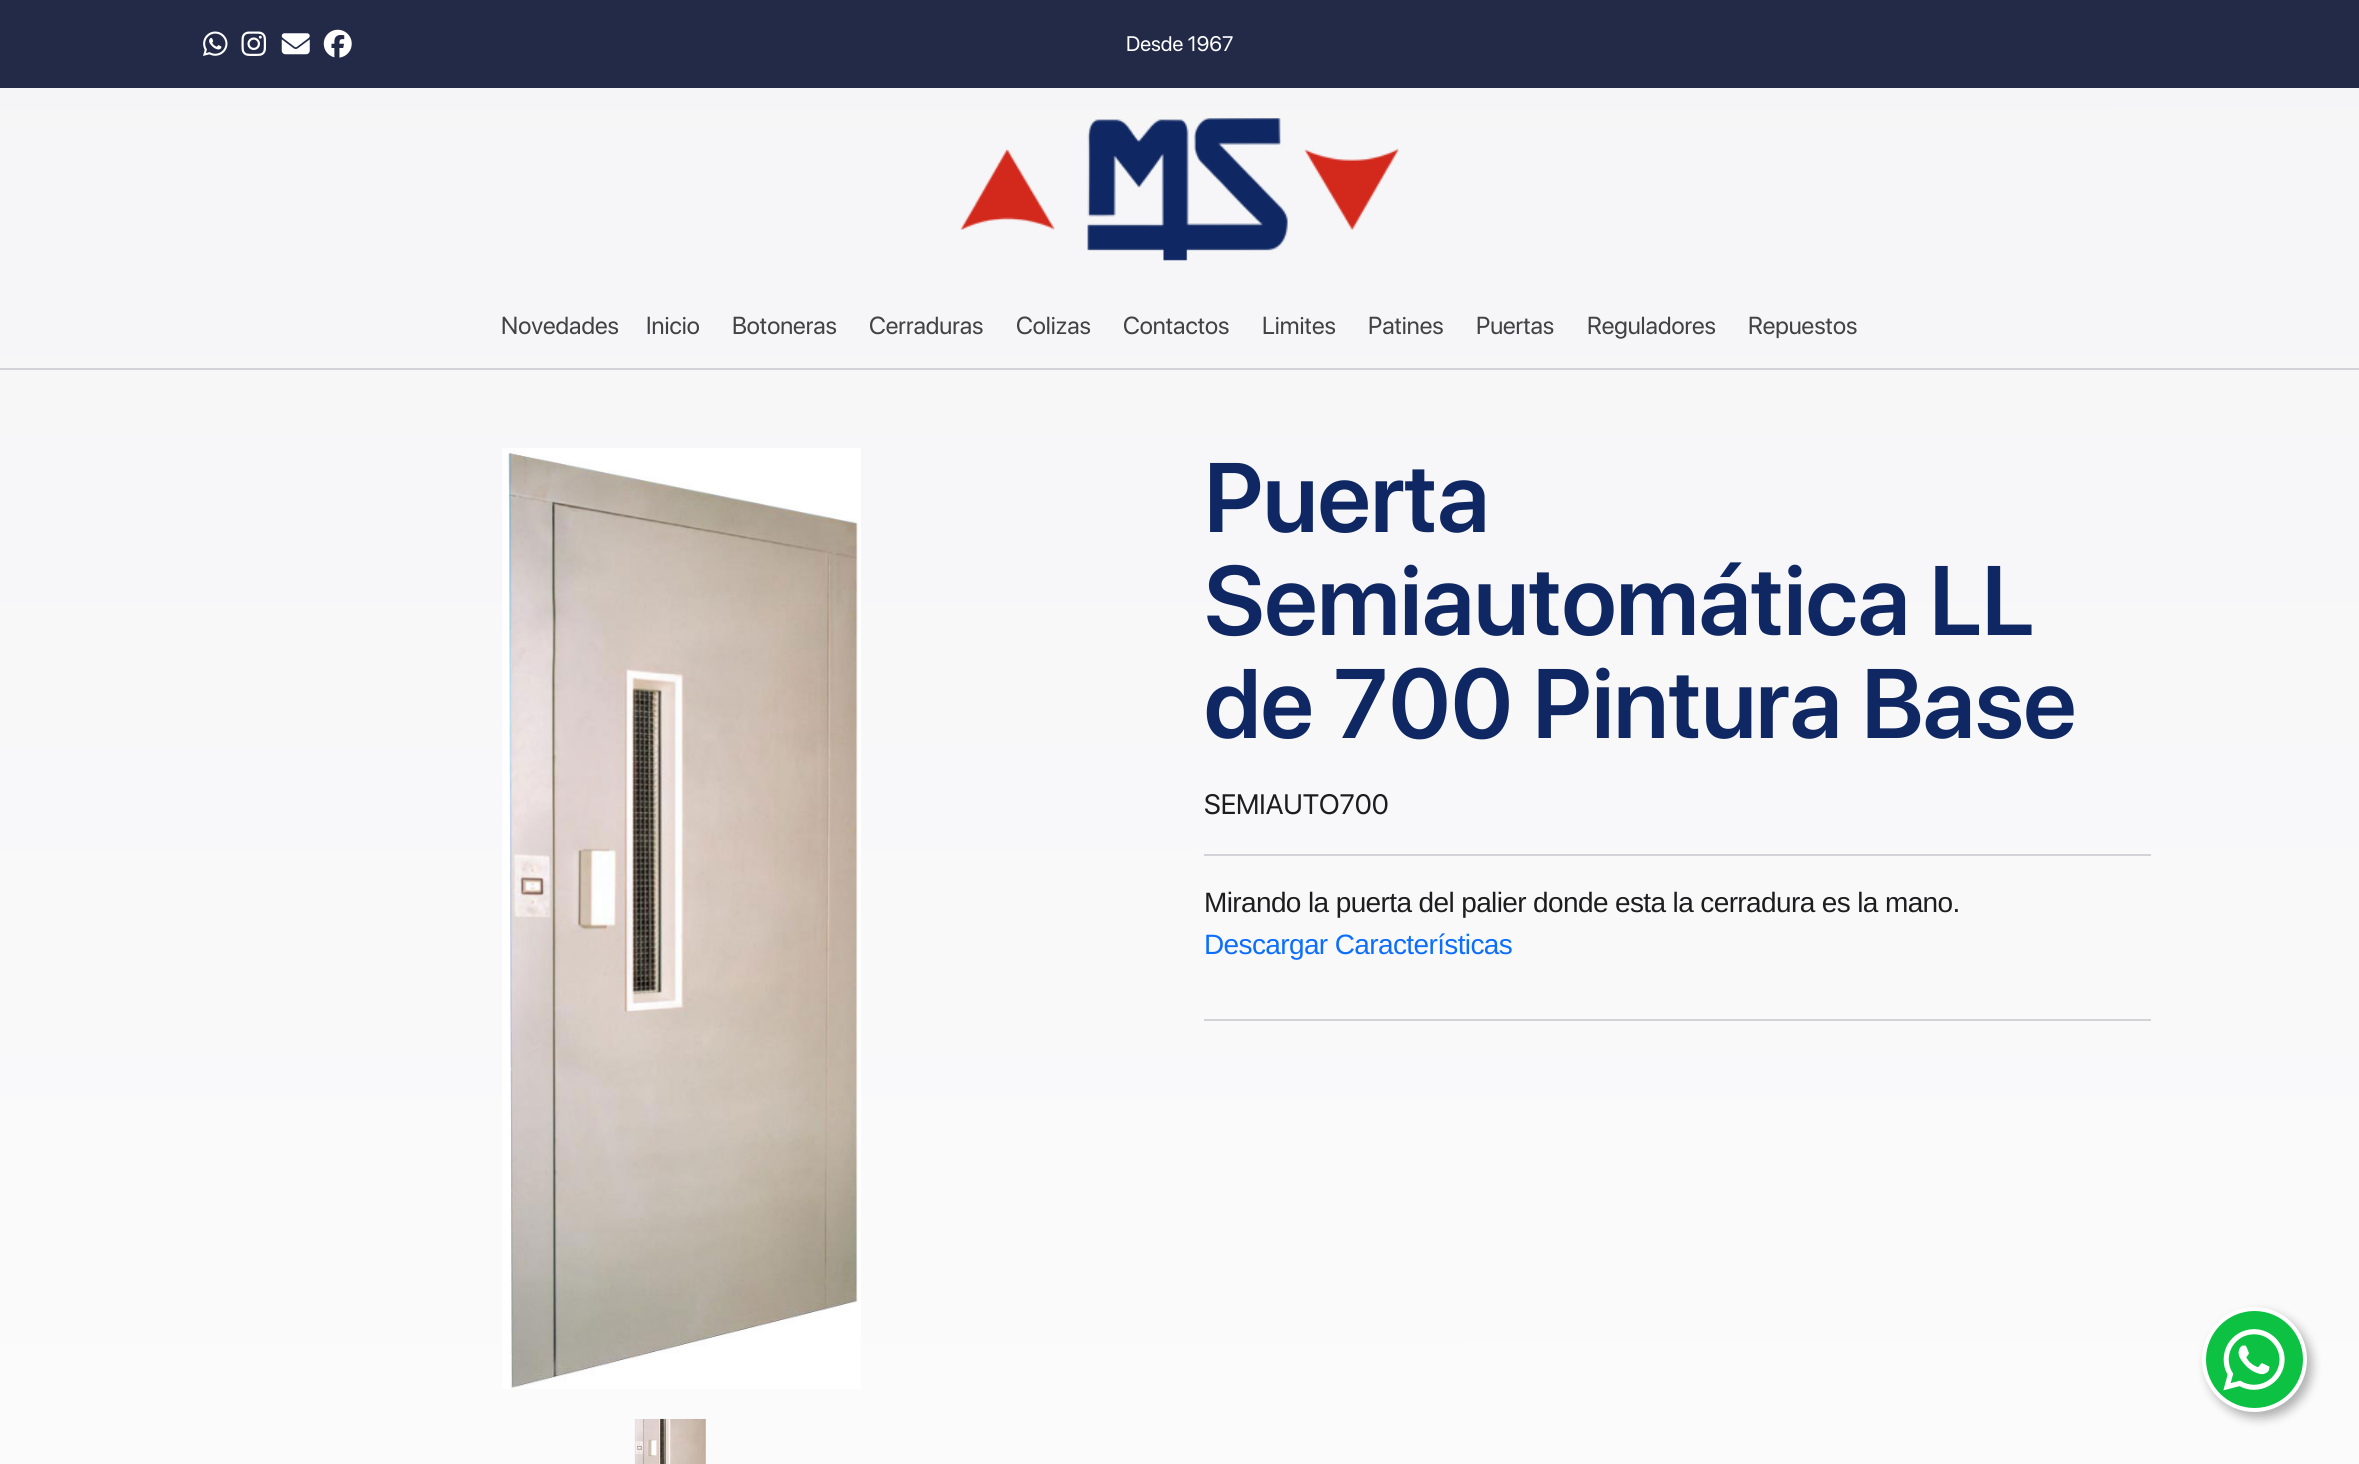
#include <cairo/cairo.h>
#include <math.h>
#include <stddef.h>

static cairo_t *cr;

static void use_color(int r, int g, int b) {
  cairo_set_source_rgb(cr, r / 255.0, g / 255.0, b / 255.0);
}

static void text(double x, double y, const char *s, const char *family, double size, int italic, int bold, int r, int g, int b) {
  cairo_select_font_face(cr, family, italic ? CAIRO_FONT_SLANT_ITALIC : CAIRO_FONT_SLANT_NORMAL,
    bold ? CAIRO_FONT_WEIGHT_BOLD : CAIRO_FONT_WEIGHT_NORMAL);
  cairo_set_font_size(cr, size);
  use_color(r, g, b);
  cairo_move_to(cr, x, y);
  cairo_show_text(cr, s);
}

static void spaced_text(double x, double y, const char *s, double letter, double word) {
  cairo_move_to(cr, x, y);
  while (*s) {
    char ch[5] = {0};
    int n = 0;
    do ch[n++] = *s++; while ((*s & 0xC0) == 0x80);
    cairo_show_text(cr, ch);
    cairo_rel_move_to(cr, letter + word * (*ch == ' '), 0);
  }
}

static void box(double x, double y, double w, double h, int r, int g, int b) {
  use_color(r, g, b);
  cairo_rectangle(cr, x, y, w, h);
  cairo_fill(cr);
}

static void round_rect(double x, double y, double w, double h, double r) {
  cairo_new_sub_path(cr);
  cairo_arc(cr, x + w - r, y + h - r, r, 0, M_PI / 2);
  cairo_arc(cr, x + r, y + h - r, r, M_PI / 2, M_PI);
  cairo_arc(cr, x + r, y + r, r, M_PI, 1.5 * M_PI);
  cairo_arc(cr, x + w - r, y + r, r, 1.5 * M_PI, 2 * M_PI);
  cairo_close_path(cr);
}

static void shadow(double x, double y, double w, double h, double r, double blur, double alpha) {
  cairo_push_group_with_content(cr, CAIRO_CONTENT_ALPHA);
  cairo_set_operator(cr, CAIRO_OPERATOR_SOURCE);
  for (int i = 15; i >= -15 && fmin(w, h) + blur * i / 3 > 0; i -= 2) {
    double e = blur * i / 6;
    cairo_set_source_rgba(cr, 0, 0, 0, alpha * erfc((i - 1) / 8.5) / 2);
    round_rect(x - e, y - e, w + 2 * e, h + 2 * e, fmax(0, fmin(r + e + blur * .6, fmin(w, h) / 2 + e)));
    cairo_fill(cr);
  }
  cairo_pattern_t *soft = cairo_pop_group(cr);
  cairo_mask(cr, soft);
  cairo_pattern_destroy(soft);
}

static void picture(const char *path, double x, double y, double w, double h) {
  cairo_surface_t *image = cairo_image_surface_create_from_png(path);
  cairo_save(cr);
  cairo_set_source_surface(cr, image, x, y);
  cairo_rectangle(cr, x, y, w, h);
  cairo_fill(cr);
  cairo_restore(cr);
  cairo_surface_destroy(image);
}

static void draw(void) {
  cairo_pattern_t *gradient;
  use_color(255, 255, 255);
  cairo_paint(cr);
  gradient = cairo_pattern_create_linear(1179, 0, 1180, 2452);
  cairo_pattern_add_color_stop_rgba(gradient, 0, 0.961, 0.961, 0.969, 1);
  cairo_pattern_add_color_stop_rgba(gradient, 1, 1, 1, 1, 1);
  cairo_set_source(cr, gradient);
  cairo_pattern_destroy(gradient);
  cairo_rectangle(cr, 0, 88, 2359, 1376);
  cairo_fill(cr);
  box(0, 368, 2359, 2, 210, 210, 215);
  box(0, 0, 2359, 88, 35, 42, 71);
  picture("img_01.png", 203, 31, 25, 25);
  picture("img_02.png", 241, 31, 25, 25);
  picture("img_03.png", 281, 33, 29, 22);
  picture("img_04.png", 323, 29, 29, 29);
  picture("img_05.png", 960, 118, 439, 143);
  picture("img_06.png", 502, 448, 359, 941);
  picture("img_07.png", 634, 1418, 72, 46);
  box(1204, 854, 947, 2, 210, 210, 215);
  box(1204, 1019, 947, 2, 210, 210, 215);
  use_color(0, 0, 0);
  shadow(2207, 1313, 105, 105, 52.5, 5, 0.3);
  use_color(13, 193, 67);
  cairo_arc(cr, 2254.5, 1359.5, 50.5, 0, 2 * M_PI);
  cairo_fill_preserve(cr);
  use_color(255, 255, 255);
  cairo_set_line_width(cr, 4);
  cairo_stroke(cr);
  picture("img_08.png", 2223, 1329, 62, 62);
  text(1126, 51, "Desde 1967", "SF Pro Display", 21, 0, 0, 255, 255, 255);
  text(501, 334, "Novedades", "SF Pro Display", 24.5, 0, 0, 66, 66, 69);
  text(646, 334, "Inicio", "SF Pro Display", 24.5, 0, 0, 66, 66, 69);
  text(732, 334, "Botoneras", "SF Pro Display", 24.5, 0, 0, 66, 66, 69);
  text(869, 334, "Cerraduras", "SF Pro Display", 24.5, 0, 0, 66, 66, 69);
  text(1016, 334, "Colizas", "SF Pro Display", 24.5, 0, 0, 66, 66, 69);
  text(1123, 334, "Contactos", "SF Pro Display", 24.5, 0, 0, 66, 66, 69);
  text(1262, 334, "Limites", "SF Pro Display", 24.5, 0, 0, 66, 66, 69);
  text(1368, 334, "Patines", "SF Pro Display", 24.5, 0, 0, 66, 66, 69);
  text(1476, 334, "Puertas", "SF Pro Display", 24.5, 0, 0, 66, 66, 69);
  text(1587, 334, "Reguladores", "SF Pro Display", 24.5, 0, 0, 66, 66, 69);
  text(1748, 334, "Repuestos", "SF Pro Display", 24.5, 0, 0, 66, 66, 69);
  text(1204, 532, "Puerta", "SF Pro Display SemiBold", 98, 0, 0, 15, 39, 98);
  text(1204, 635, "Semiautomática LL", "SF Pro Display SemiBold", 98, 0, 0, 15, 39, 98);
  text(1204, 738, "de 700 Pintura Base", "SF Pro Display SemiBold", 98, 0, 0, 15, 39, 98);
  text(1204, 814, "SEMIAUTO700", "SF Pro Display", 28, 0, 0, 29, 29, 31);
  cairo_select_font_face(cr, "Liberation Sans", CAIRO_FONT_SLANT_NORMAL, CAIRO_FONT_WEIGHT_NORMAL);
  spaced_text(1204, 912, "Mirando la puerta del palier donde esta la cerradura es la mano.", -0.62, 0);
  use_color(13, 110, 253);
  spaced_text(1204, 954, "Descargar Características", -0.62, 0);
}

int main(void) {
  cairo_surface_t *surface = cairo_image_surface_create(CAIRO_FORMAT_RGB24, 2359, 1464);
  cr = cairo_create(surface);
  cairo_font_options_t *options = cairo_font_options_create();
  cairo_font_options_set_hint_metrics(options, CAIRO_HINT_METRICS_OFF);
  cairo_font_options_set_hint_style(options, CAIRO_HINT_STYLE_NONE);
  cairo_set_font_options(cr, options);
  cairo_set_miter_limit(cr, 4);
  draw();
  cairo_surface_write_to_png(surface, "out.png");
  cairo_font_options_destroy(options);
  cairo_destroy(cr);
  cairo_surface_destroy(surface);
  return 0;
}
